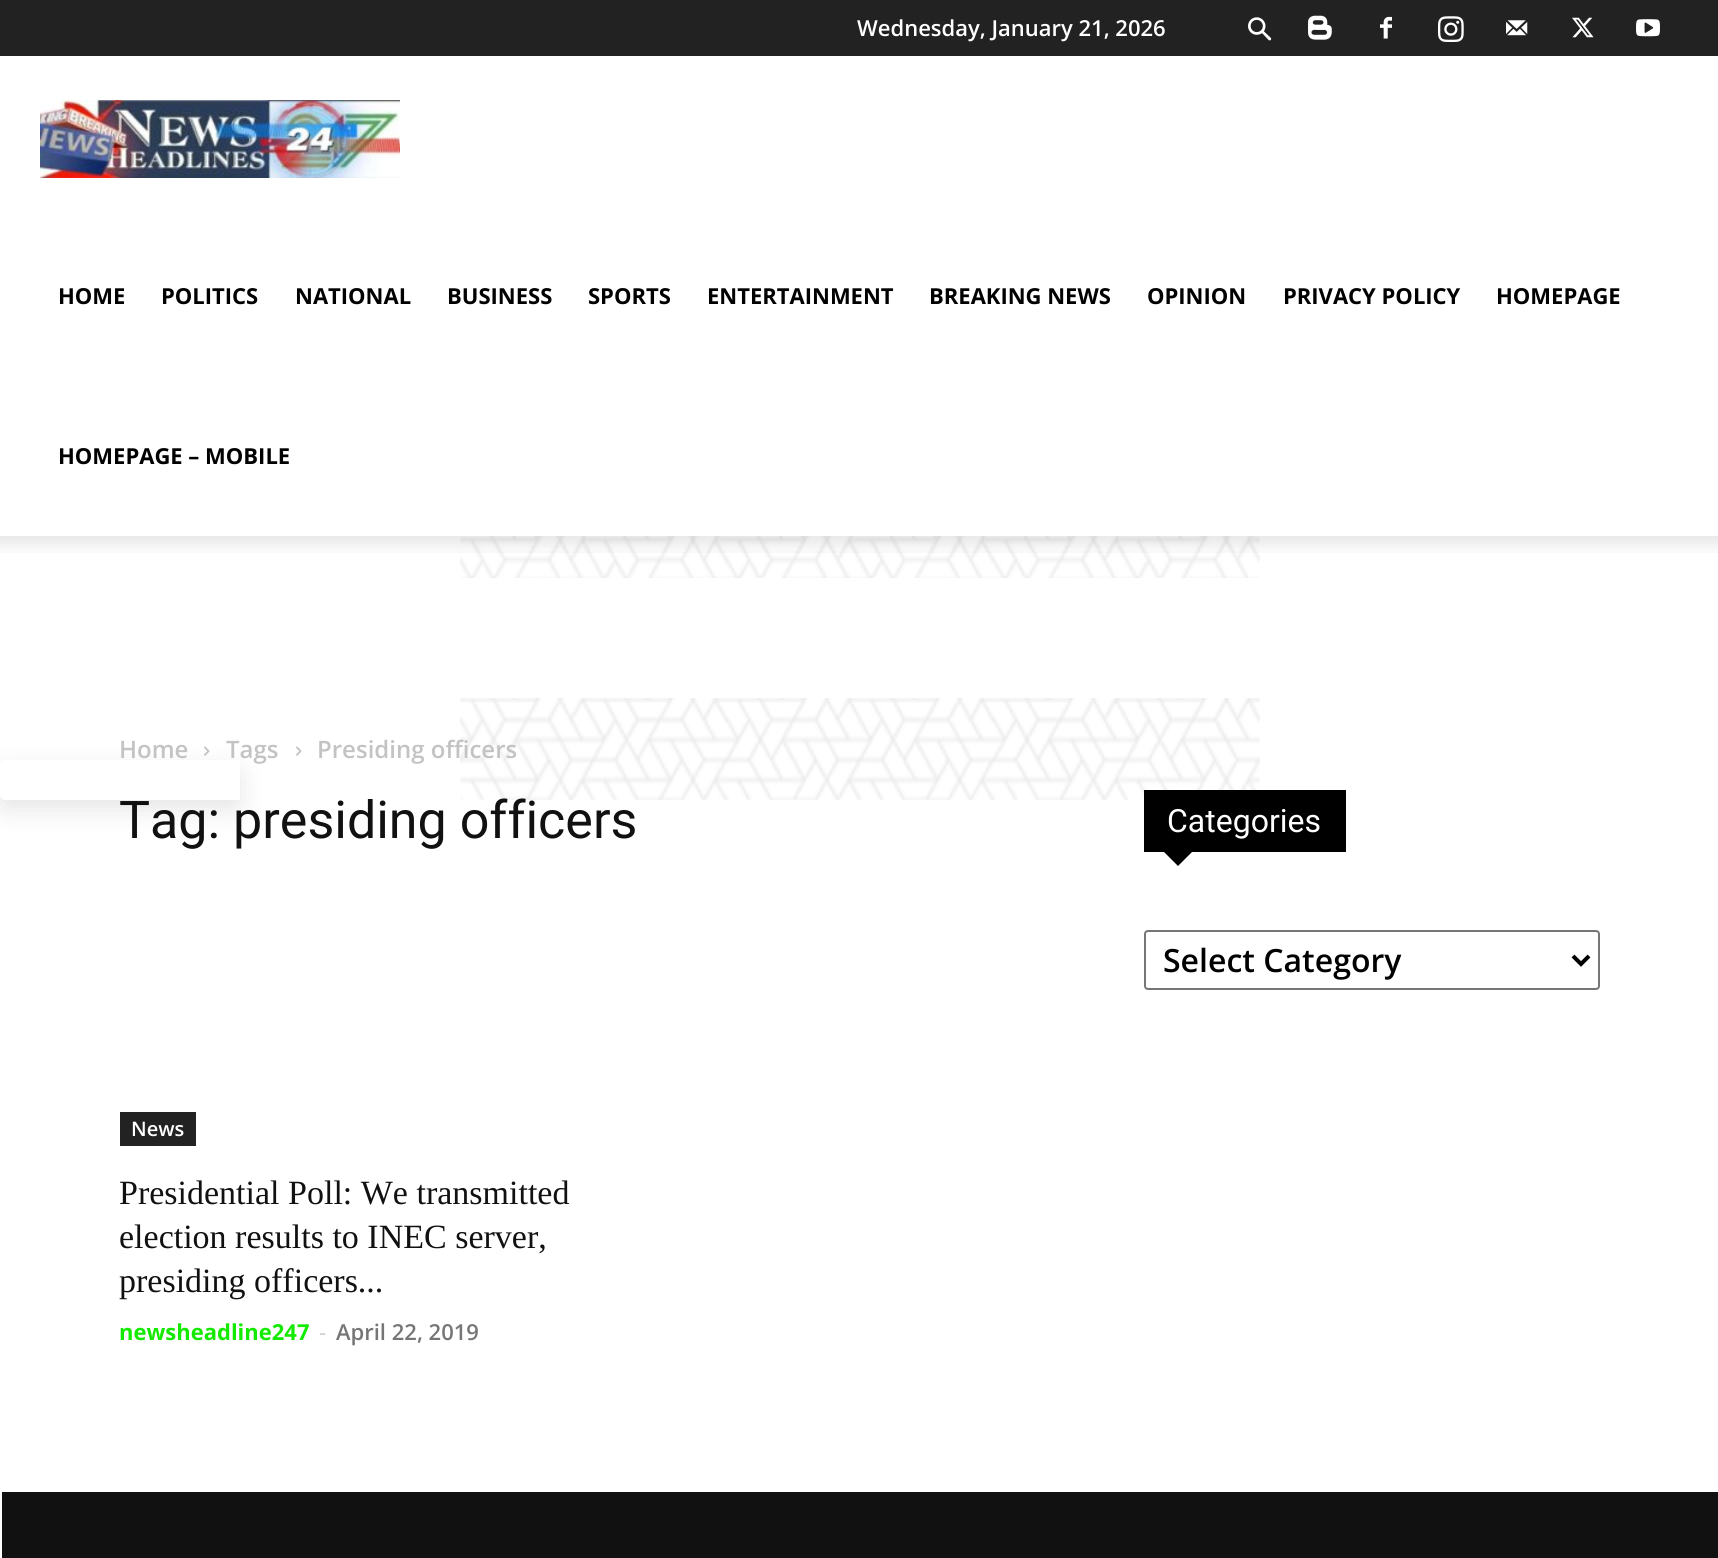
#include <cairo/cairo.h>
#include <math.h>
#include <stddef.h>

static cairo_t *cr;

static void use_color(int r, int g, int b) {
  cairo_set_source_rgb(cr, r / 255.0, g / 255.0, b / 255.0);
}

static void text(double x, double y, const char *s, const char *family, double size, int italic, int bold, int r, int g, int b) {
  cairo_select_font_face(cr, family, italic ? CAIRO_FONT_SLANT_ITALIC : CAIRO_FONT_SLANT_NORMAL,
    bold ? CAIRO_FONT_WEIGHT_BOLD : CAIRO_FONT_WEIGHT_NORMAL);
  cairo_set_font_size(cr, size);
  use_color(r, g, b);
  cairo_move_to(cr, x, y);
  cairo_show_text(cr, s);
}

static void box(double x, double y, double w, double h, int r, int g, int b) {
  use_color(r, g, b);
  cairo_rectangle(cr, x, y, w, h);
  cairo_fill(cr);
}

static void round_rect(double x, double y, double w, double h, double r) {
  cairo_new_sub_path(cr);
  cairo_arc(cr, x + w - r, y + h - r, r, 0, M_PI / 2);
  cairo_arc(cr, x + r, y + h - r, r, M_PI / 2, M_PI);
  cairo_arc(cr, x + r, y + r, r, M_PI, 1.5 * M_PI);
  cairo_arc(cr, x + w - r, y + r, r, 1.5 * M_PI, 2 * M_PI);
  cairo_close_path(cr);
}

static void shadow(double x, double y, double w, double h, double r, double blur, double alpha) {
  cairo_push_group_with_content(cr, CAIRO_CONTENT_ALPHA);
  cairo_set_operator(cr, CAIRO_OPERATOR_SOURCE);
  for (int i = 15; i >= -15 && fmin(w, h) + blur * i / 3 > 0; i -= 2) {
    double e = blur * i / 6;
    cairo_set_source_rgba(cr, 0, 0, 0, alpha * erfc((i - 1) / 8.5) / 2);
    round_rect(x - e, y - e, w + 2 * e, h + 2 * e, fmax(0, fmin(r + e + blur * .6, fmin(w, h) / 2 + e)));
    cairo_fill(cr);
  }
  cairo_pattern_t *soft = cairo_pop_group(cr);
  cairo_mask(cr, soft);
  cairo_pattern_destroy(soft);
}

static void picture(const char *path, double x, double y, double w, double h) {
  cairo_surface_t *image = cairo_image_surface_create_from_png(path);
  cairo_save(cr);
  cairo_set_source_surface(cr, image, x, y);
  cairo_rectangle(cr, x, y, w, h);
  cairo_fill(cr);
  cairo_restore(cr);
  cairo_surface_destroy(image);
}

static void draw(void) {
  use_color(255, 255, 255);
  cairo_paint(cr);
  picture("img_01.png", 460, 536, 800, 264);
  box(0, 0, 1718, 56, 34, 34, 34);
  picture("img_02.png", 1248, 17, 24, 24);
  picture("img_03.png", 1308, 15, 24, 25);
  picture("img_04.png", 1380, 16, 12, 23);
  picture("img_05.png", 1438, 16, 26, 26);
  picture("img_06.png", 1506, 20, 22, 16);
  picture("img_07.png", 1572, 17, 22, 21);
  picture("img_08.png", 1636, 19, 24, 18);
  picture("img_09.png", 40, 100, 360, 78);
  picture("img_10.png", 0, 536, 1718, 17);
  box(460, 578, 800, 120, 255, 255, 255);
  picture("img_11.png", 204, 746, 6, 10);
  picture("img_11.png", 296, 746, 6, 10);
  box(120, 1112, 76, 34, 34, 34, 34);
  box(1144, 790, 202, 62, 0, 0, 0);
  cairo_new_path(cr);
  cairo_move_to(cr, 1164, 852);
  cairo_line_to(cr, 1192, 852);
  cairo_line_to(cr, 1178, 866);
  cairo_close_path(cr);
  cairo_fill(cr);
  round_rect(1145, 931, 454, 58, 3);
  use_color(118, 118, 118);
  cairo_stroke(cr);
  cairo_new_path(cr);
  cairo_move_to(cr, 1573, 956);
  cairo_line_to(cr, 1581, 964);
  cairo_line_to(cr, 1589, 956);
  use_color(0, 0, 0);
  cairo_set_line_width(cr, 4);
  cairo_stroke(cr);
  box(2, 1492, 1716, 66, 17, 17, 17);
  use_color(0, 0, 0);
  shadow(0, 770, 240, 40, 6, 13, 0.1);
  text(857, 36, "Wednesday, January 21, 2026", "Open Sans SemiBold", 22, 0, 0, 255, 255, 255);
  text(58, 304, "HOME", "Open Sans", 22, 0, 1, 0, 0, 0);
  text(161, 304, "POLITICS", "Open Sans", 22, 0, 1, 0, 0, 0);
  text(295, 304, "NATIONAL", "Open Sans", 22, 0, 1, 0, 0, 0);
  text(447, 304, "BUSINESS", "Open Sans", 22, 0, 1, 0, 0, 0);
  text(588, 304, "SPORTS", "Open Sans", 22, 0, 1, 0, 0, 0);
  text(707, 304, "ENTERTAINMENT", "Open Sans", 22, 0, 1, 0, 0, 0);
  text(929, 304, "BREAKING NEWS", "Open Sans", 22, 0, 1, 0, 0, 0);
  text(1147, 304, "OPINION", "Open Sans", 22, 0, 1, 0, 0, 0);
  text(1283, 304, "PRIVACY POLICY", "Open Sans", 22, 0, 1, 0, 0, 0);
  text(1496, 304, "HOMEPAGE", "Open Sans", 22, 0, 1, 0, 0, 0);
  text(58, 464, "HOMEPAGE – MOBILE", "Open Sans", 22, 0, 1, 0, 0, 0);
  text(119, 758, "Home", "Open Sans SemiBold", 24, 0, 0, 195, 195, 195);
  text(226, 758, "Tags", "Open Sans SemiBold", 24, 0, 0, 195, 195, 195);
  text(317, 758, "Presiding officers", "Open Sans SemiBold", 24, 0, 0, 195, 195, 195);
  text(119, 838, "Tag: presiding officers", "Roboto", 52, 0, 0, 17, 17, 17);
  text(131, 1136, "News", "Open Sans SemiBold", 20, 0, 0, 255, 255, 255);
  text(119, 1204, "Presidential Poll: We transmitted", "Liberation Serif", 34, 0, 0, 17, 17, 17);
  text(119, 1248, "election results to INEC server,", "Liberation Serif", 34, 0, 0, 17, 17, 17);
  text(119, 1292, "presiding officers...", "Liberation Serif", 34, 0, 0, 17, 17, 17);
  text(119, 1340, "newsheadline247", "Open Sans", 22, 0, 1, 19, 234, 0);
  text(319, 1340, "-", "Open Sans", 22, 0, 0, 204, 204, 204);
  text(336, 1340, "April 22, 2019", "Open Sans SemiBold", 22, 0, 0, 118, 118, 118);
  text(1167, 832, "Categories", "Roboto", 32, 0, 0, 255, 255, 255);
  text(1163, 972, "Select Category", "Open Sans SemiBold", 32, 0, 0, 0, 0, 0);
  use_color(255, 255, 255);
  cairo_new_path(cr);
  cairo_move_to(cr, 6, 760);
  cairo_line_to(cr, 240, 760);
  cairo_line_to(cr, 240, 800);
  cairo_line_to(cr, 6, 800);
  cairo_curve_to(cr, 2.5, 800, 0, 797.5, 0, 794);
  cairo_line_to(cr, 0, 766);
  cairo_curve_to(cr, 0, 762.5, 2.5, 760, 6, 760);
  cairo_close_path(cr);
  cairo_fill(cr);
}

int main(void) {
  cairo_surface_t *surface = cairo_image_surface_create(CAIRO_FORMAT_RGB24, 1718, 1558);
  cr = cairo_create(surface);
  cairo_font_options_t *options = cairo_font_options_create();
  cairo_font_options_set_hint_metrics(options, CAIRO_HINT_METRICS_OFF);
  cairo_font_options_set_hint_style(options, CAIRO_HINT_STYLE_NONE);
  cairo_set_font_options(cr, options);
  cairo_set_miter_limit(cr, 4);
  draw();
  cairo_surface_write_to_png(surface, "out.png");
  cairo_font_options_destroy(options);
  cairo_destroy(cr);
  cairo_surface_destroy(surface);
  return 0;
}
